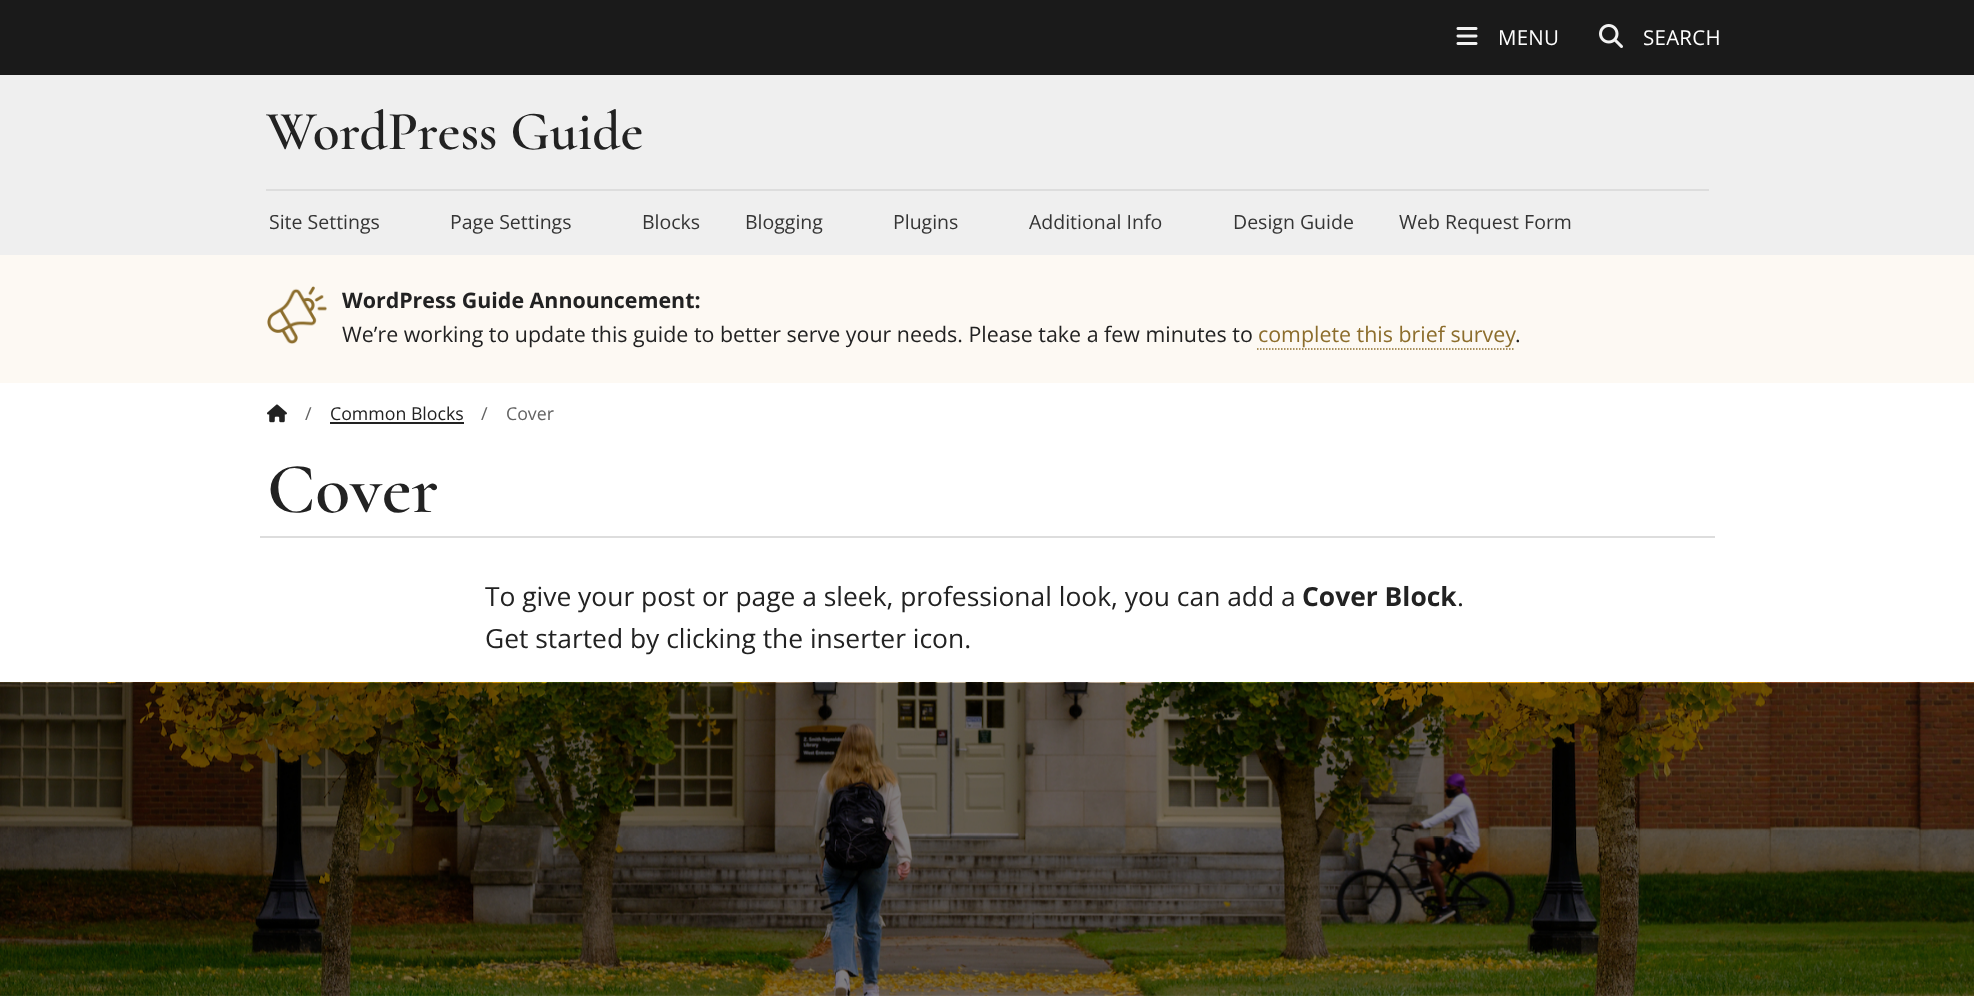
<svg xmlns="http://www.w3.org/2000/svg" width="1974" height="996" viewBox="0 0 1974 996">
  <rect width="100%" height="100%" fill="rgb(255,255,255)"/>
  <rect x="0" y="0" width="1974" height="75" fill="rgb(26,26,26)"/>
  <image x="1456" y="27" width="22" height="18" href="pic1.png"/>
  <text x="1498" y="45" font-family="Open Sans" font-size="20.5" letter-spacing="0.25" fill="rgb(255,255,255)">MENU</text>
  <image x="1599" y="24" width="24" height="24" href="pic2.png"/>
  <text x="1643" y="45" font-family="Open Sans" font-size="20.5" letter-spacing="0.25" fill="rgb(255,255,255)">SEARCH</text>
  <rect x="0" y="75" width="1974" height="180" fill="rgb(239,239,239)"/>
  <rect x="266" y="189" width="1443" height="2" fill="rgb(221,221,221)"/>
  <text x="266" y="149" font-family="Cormorant" font-size="55.25" font-weight="600" fill="rgb(34,34,34)">WordPress Guide</text>
  <g font-family="Open Sans" font-size="19.5" fill="rgb(53,53,53)">
    <text x="269" y="229">Site Settings</text>
    <text x="450" y="229">Page Settings</text>
    <text x="642" y="229">Blocks</text>
    <text x="745" y="229">Blogging</text>
    <text x="893" y="229">Plugins</text>
    <text x="1029" y="229">Additional Info</text>
    <text x="1233" y="229">Design Guide</text>
    <text x="1399" y="229">Web Request Form</text>
  </g>
  <rect x="0" y="255" width="1974" height="128" fill="rgb(253,249,243)"/>
  <image x="267" y="286" width="60" height="58" href="pic3.png"/>
  <text x="342" y="308" font-family="Open Sans" font-size="21.4" font-weight="bold" fill="rgb(34,34,34)">WordPress Guide Announcement:</text>
  <text x="342" y="342" font-family="Open Sans" font-size="21.4" fill="rgb(34,34,34)">We’re working to update this guide to better serve your needs. Please take a few minutes to</text>
  <text x="1258" y="342" font-family="Open Sans" font-size="21.4" fill="rgb(140,109,44)">complete this brief survey</text>
  <path d="M1257 349H1515" fill="none" stroke="rgb(140,109,44)" stroke-width="1.5" stroke-dasharray="1.5 1.5"/>
  <text x="1515" y="342" font-family="Open Sans" font-size="21.4" fill="rgb(34,34,34)">.</text>
  <image x="267" y="404" width="20" height="19" href="pic4.png"/>
  <text x="305" y="420" font-family="Open Sans" font-size="18" fill="rgb(98,98,98)">/</text>
  <text x="330" y="420" font-family="Open Sans" font-size="17.75" fill="rgb(34,34,34)">Common Blocks</text>
  <rect x="330" y="422" width="134" height="2" fill="rgb(34,34,34)"/>
  <text x="481" y="420" font-family="Open Sans" font-size="18" fill="rgb(98,98,98)">/</text>
  <text x="506" y="420" font-family="Open Sans" font-size="17.75" fill="rgb(98,98,98)">Cover</text>
  <rect x="260" y="536" width="1455" height="2" fill="rgb(221,221,221)"/>
  <text x="267" y="512" font-family="Cormorant" font-size="72" font-weight="600" fill="rgb(34,34,34)">Cover</text>
  <text x="485" y="606" font-family="Open Sans" font-size="26.4" fill="rgb(34,34,34)">To give your post or page a sleek, professional look, you can add a</text>
  <text x="1302" y="606" font-family="Open Sans" font-size="26.4" font-weight="bold" fill="rgb(34,34,34)">Cover Block</text>
  <g font-family="Open Sans" font-size="26.4" fill="rgb(34,34,34)">
    <text x="1457" y="606">.</text>
    <text x="485" y="648">Get started by clicking the inserter icon.</text>
  </g>
  <image x="0" y="682" width="1974" height="314" href="pic5.png"/>
</svg>
